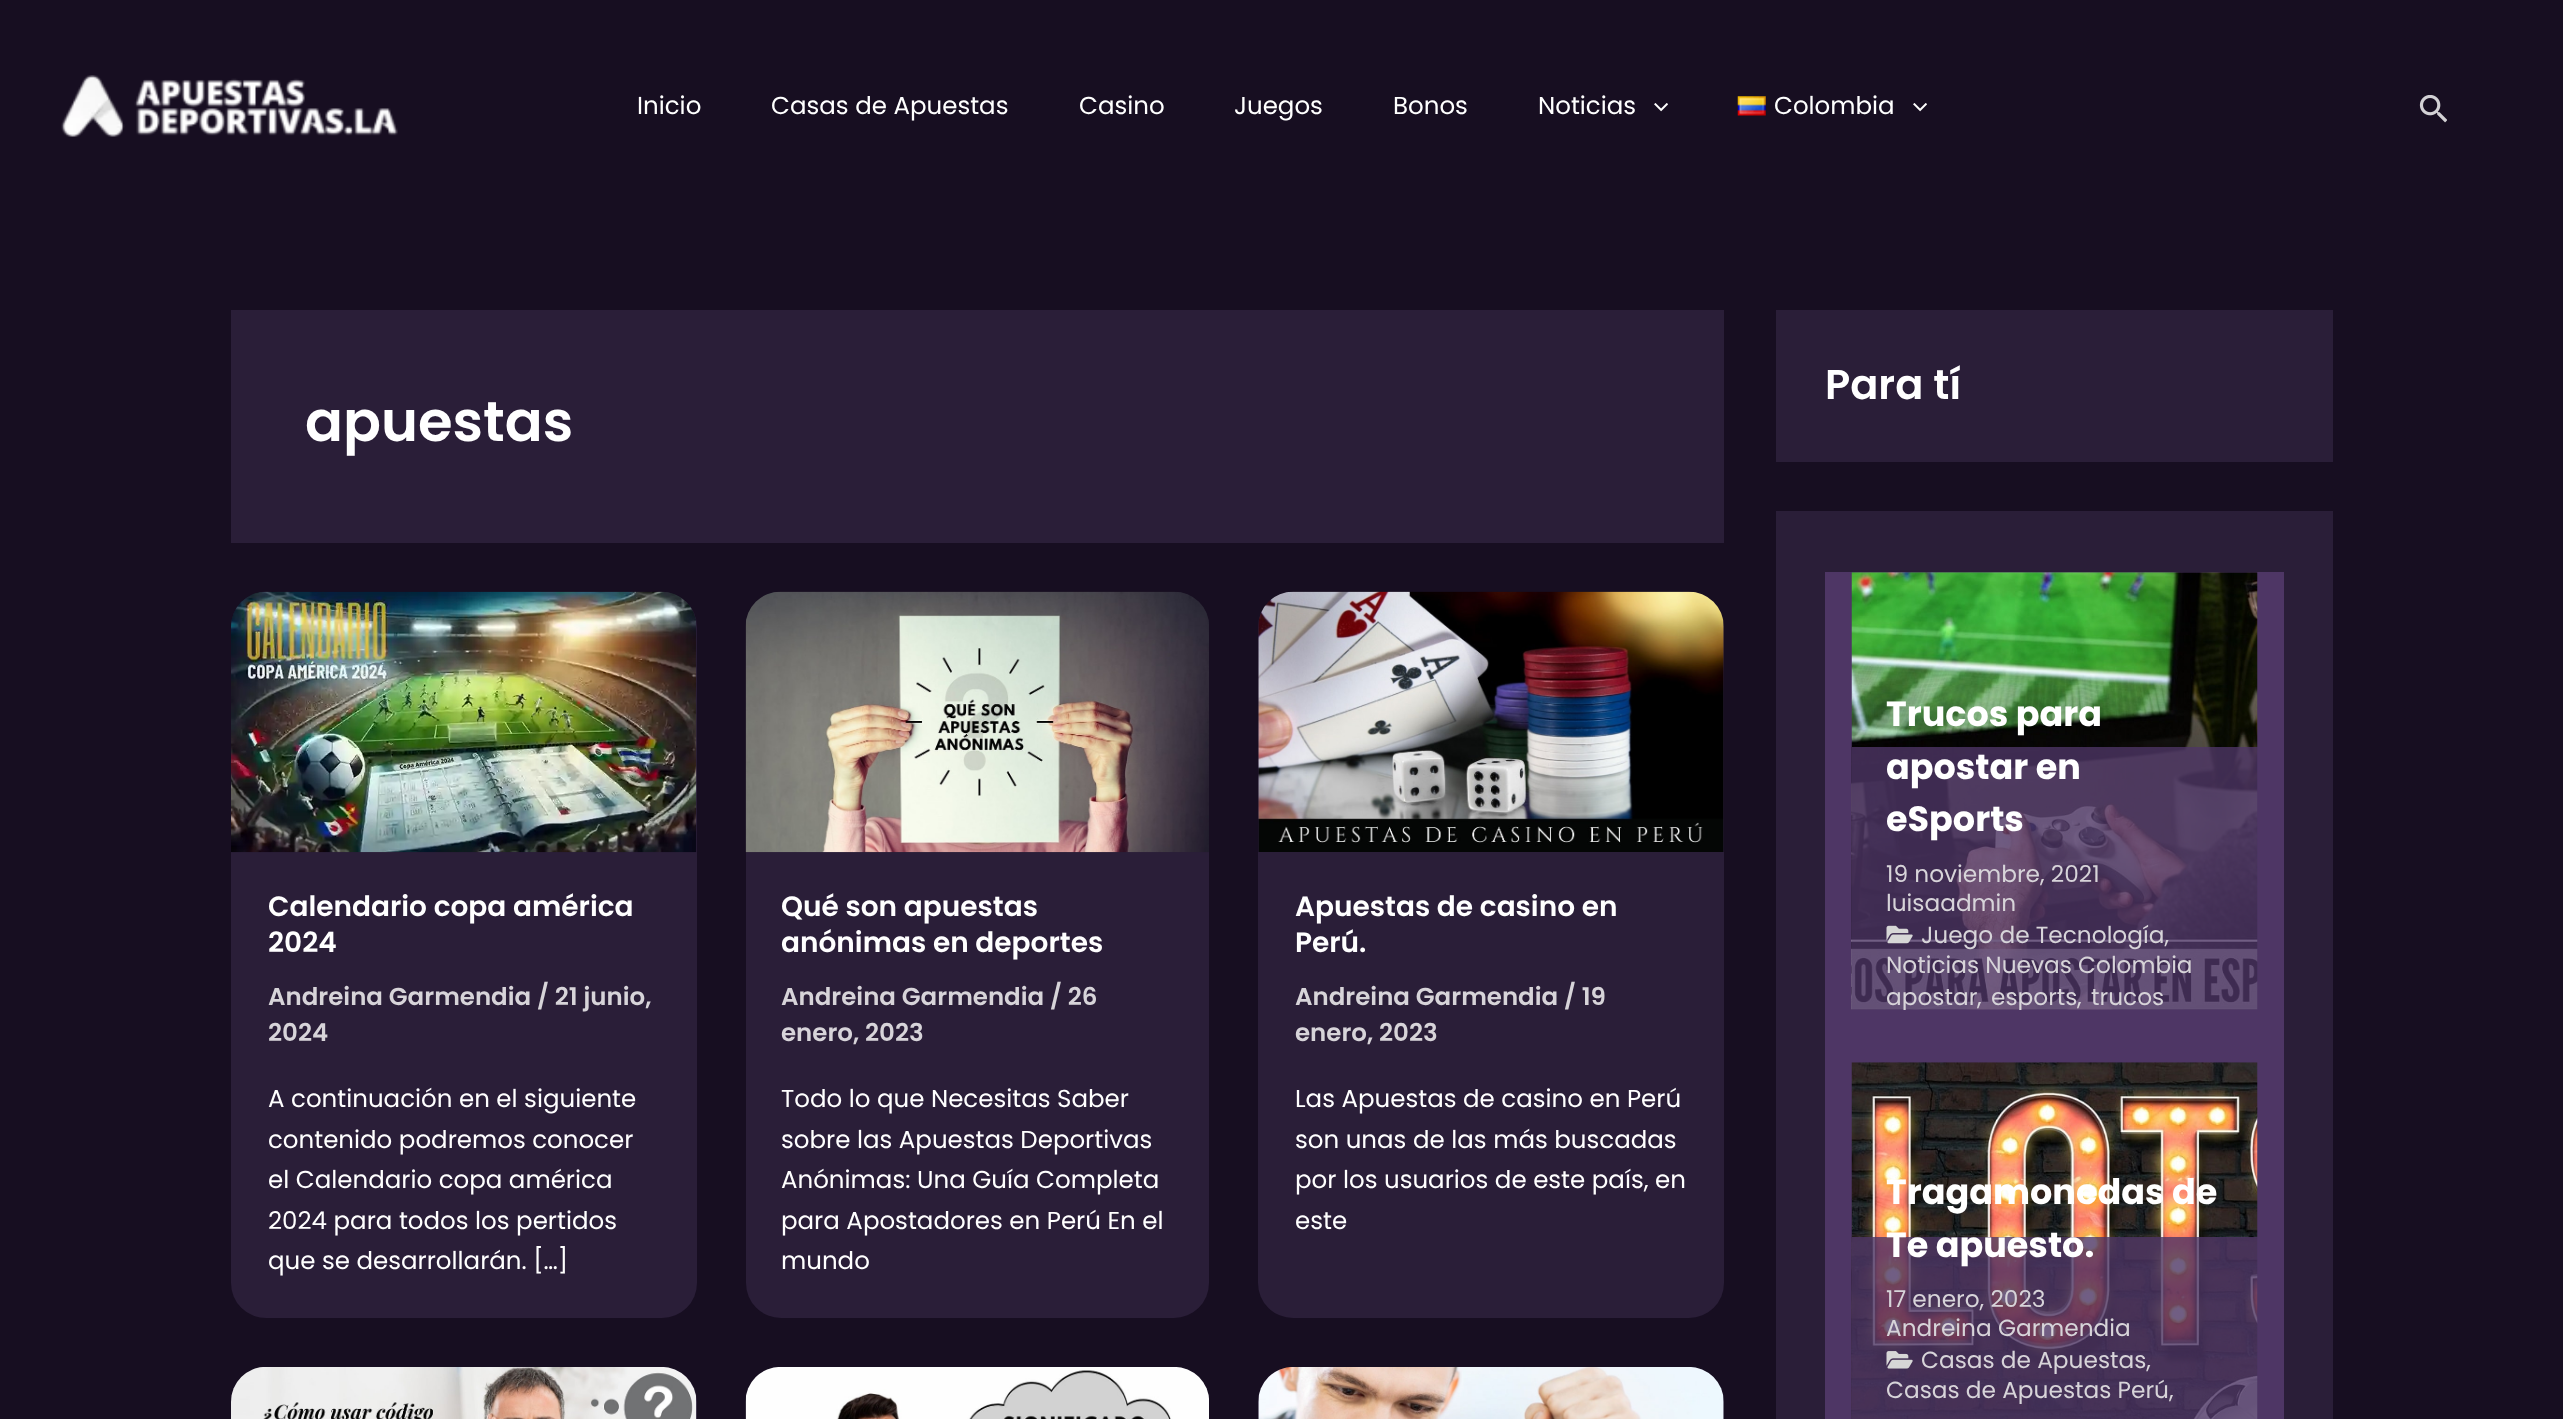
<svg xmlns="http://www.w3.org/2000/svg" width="2563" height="1419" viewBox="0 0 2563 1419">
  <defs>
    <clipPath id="clip1"><rect x="1852" y="572" width="406" height="438"/></clipPath>
  </defs>
  <rect width="100%" height="100%" fill="rgb(23,14,33)"/>
  <image x="61" y="75" width="337" height="62" href="pic1.png"/>
  <g font-family="Poppins" font-size="24.5" fill="rgb(255,255,255)">
    <text x="637" y="114">Inicio</text>
    <text x="771" y="114">Casas de Apuestas</text>
    <text x="1079" y="114">Casino</text>
    <text x="1234" y="114">Juegos</text>
    <text x="1393" y="114">Bonos</text>
    <text x="1538" y="114">Noticias</text>
  </g>
  <image x="1654" y="103" width="14" height="9" href="pic2.png"/>
  <image x="1737" y="96" width="29" height="20" href="pic3.png"/>
  <text x="1774" y="114" font-family="Poppins" font-size="24.5" fill="rgb(255,255,255)">Colombia</text>
  <image x="1913" y="103" width="14" height="9" href="pic2.png"/>
  <image x="2419" y="95" width="28" height="28" href="pic4.png"/>
  <rect x="231" y="310" width="1493" height="233" fill="rgb(42,30,56)"/>
  <text x="305" y="441" font-family="Poppins" font-size="56" font-weight="600" fill="rgb(255,255,255)">apuestas</text>
  <rect x="231" y="592" width="466" height="726" rx="35" fill="rgb(42,30,56)"/>
  <image x="231" y="591" width="466" height="262" href="pic5.png"/>
  <g font-family="Poppins" font-size="28" font-weight="600" fill="rgb(255,255,255)">
    <text>
      <tspan x="268" y="916">Calendario copa américa</tspan>
      <tspan x="268" y="952">2024</tspan>
    </text>
  </g>
  <g font-family="Poppins" font-size="24.5" font-weight="600" fill="rgb(215,212,217)">
    <text>
      <tspan x="268" y="1005">Andreina Garmendia / 21 junio,</tspan>
      <tspan x="268" y="1041">2024</tspan>
    </text>
  </g>
  <g font-family="Poppins" font-size="24.5" fill="rgb(255,255,255)">
    <text>
      <tspan x="268" y="1107">A continuación en el siguiente</tspan>
      <tspan x="268" y="1148">contenido podremos conocer</tspan>
      <tspan x="268" y="1188">el Calendario copa américa</tspan>
      <tspan x="268" y="1229">2024 para todos los pertidos</tspan>
      <tspan x="268" y="1269">que se desarrollarán. […]</tspan>
    </text>
  </g>
  <rect x="746" y="592" width="463" height="726" rx="35" fill="rgb(42,30,56)"/>
  <image x="745" y="591" width="464" height="262" href="pic6.png"/>
  <g font-family="Poppins" font-size="28" font-weight="600" fill="rgb(255,255,255)">
    <text>
      <tspan x="781" y="916">Qué son apuestas</tspan>
      <tspan x="781" y="952">anónimas en deportes</tspan>
    </text>
  </g>
  <g font-family="Poppins" font-size="24.5" font-weight="600" fill="rgb(215,212,217)">
    <text>
      <tspan x="781" y="1005">Andreina Garmendia / 26</tspan>
      <tspan x="781" y="1041">enero, 2023</tspan>
    </text>
  </g>
  <g font-family="Poppins" font-size="24.5" fill="rgb(255,255,255)">
    <text>
      <tspan x="781" y="1107">Todo lo que Necesitas Saber</tspan>
      <tspan x="781" y="1148">sobre las Apuestas Deportivas</tspan>
      <tspan x="781" y="1188">Anónimas: Una Guía Completa</tspan>
      <tspan x="781" y="1229">para Apostadores en Perú En el</tspan>
      <tspan x="781" y="1269">mundo</tspan>
    </text>
  </g>
  <rect x="1258" y="592" width="466" height="726" rx="35" fill="rgb(42,30,56)"/>
  <image x="1258" y="591" width="466" height="261" href="pic7.png"/>
  <g font-family="Poppins" font-size="28" font-weight="600" fill="rgb(255,255,255)">
    <text>
      <tspan x="1295" y="916">Apuestas de casino en</tspan>
      <tspan x="1295" y="952">Perú.</tspan>
    </text>
  </g>
  <g font-family="Poppins" font-size="24.5" font-weight="600" fill="rgb(215,212,217)">
    <text>
      <tspan x="1295" y="1005">Andreina Garmendia / 19</tspan>
      <tspan x="1295" y="1041">enero, 2023</tspan>
    </text>
  </g>
  <g font-family="Poppins" font-size="24.5" fill="rgb(255,255,255)">
    <text>
      <tspan x="1295" y="1107">Las Apuestas de casino en Perú</tspan>
      <tspan x="1295" y="1148">son unas de las más buscadas</tspan>
      <tspan x="1295" y="1188">por los usuarios de este país, en</tspan>
      <tspan x="1295" y="1229">este</tspan>
    </text>
  </g>
  <rect x="231" y="1367" width="466" height="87" rx="35" fill="rgb(42,30,56)"/>
  <image x="231" y="1367" width="466" height="52" href="pic8.png"/>
  <image x="745" y="1367" width="464" height="52" href="pic9.png"/>
  <rect x="1258" y="1367" width="466" height="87" rx="35" fill="rgb(42,30,56)"/>
  <image x="1258" y="1367" width="466" height="52" href="pic10.png"/>
  <rect x="1776" y="310" width="557" height="152" fill="rgb(42,30,56)"/>
  <text x="1825" y="399" font-family="Poppins" font-size="41.5" font-weight="600" fill="rgb(255,255,255)">Para tí</text>
  <rect x="1776" y="511" width="557" height="908" fill="rgb(42,30,56)"/>
  <rect x="1825" y="572" width="459" height="847" fill="rgb(78,54,101)"/>
  <image x="1851" y="572" width="407" height="438" href="pic11.png"/>
  <rect x="1852" y="747" width="406" height="263" fill="rgba(78,54,101,0.8)"/>
  <g font-family="Poppins" font-size="35" font-weight="bold" fill="rgb(255,255,255)">
    <text>
      <tspan x="1886" y="726">Trucos para</tspan>
      <tspan x="1886" y="779">apostar en</tspan>
      <tspan x="1886" y="831">eSports</tspan>
    </text>
  </g>
  <g font-family="Poppins" font-size="23.25" fill="rgb(215,212,217)">
    <text>
      <tspan x="1886" y="882">19 noviembre, 2021</tspan>
      <tspan x="1886" y="911">luisaadmin</tspan>
    </text>
  </g>
  <image x="1886" y="925" width="27" height="19" href="pic12.png"/>
  <g font-family="Poppins" font-size="23.25" fill="rgb(215,212,217)">
    <text x="1921" y="943">Juego de Tecnología,</text>
    <text x="1886" y="973">Noticias Nuevas Colombia</text>
  </g>
  <g clip-path="url(#clip1)">
    <text x="1886" y="1005" font-family="Poppins" font-size="23.25" fill="rgb(215,212,217)">apostar</text>
  </g>
  <text x="1977" y="1005" font-family="Poppins" font-size="23.25" fill="rgb(215,212,217)">,</text>
  <g clip-path="url(#clip1)">
    <text x="1991" y="1005" font-family="Poppins" font-size="23.25" fill="rgb(215,212,217)">esports</text>
  </g>
  <g font-family="Poppins" font-size="23.25" fill="rgb(215,212,217)">
    <text x="2077" y="1005">,</text>
    <text x="2091" y="1005">trucos</text>
  </g>
  <image x="1851" y="1062" width="407" height="357" href="pic13.png"/>
  <rect x="1852" y="1237" width="406" height="182" fill="rgba(78,54,101,0.8)"/>
  <g font-family="Poppins" font-size="35" font-weight="bold" fill="rgb(255,255,255)">
    <text>
      <tspan x="1886" y="1204">Tragamonedas de</tspan>
      <tspan x="1886" y="1257">Te apuesto.</tspan>
    </text>
  </g>
  <g font-family="Poppins" font-size="23.25" fill="rgb(215,212,217)">
    <text>
      <tspan x="1886" y="1307">17 enero, 2023</tspan>
      <tspan x="1886" y="1336">Andreina Garmendia</tspan>
    </text>
  </g>
  <image x="1886" y="1351" width="27" height="18" href="pic14.png"/>
  <g font-family="Poppins" font-size="23.25" fill="rgb(215,212,217)">
    <text x="1921" y="1368">Casas de Apuestas,</text>
    <text x="1886" y="1398">Casas de Apuestas Perú,</text>
  </g>
</svg>
